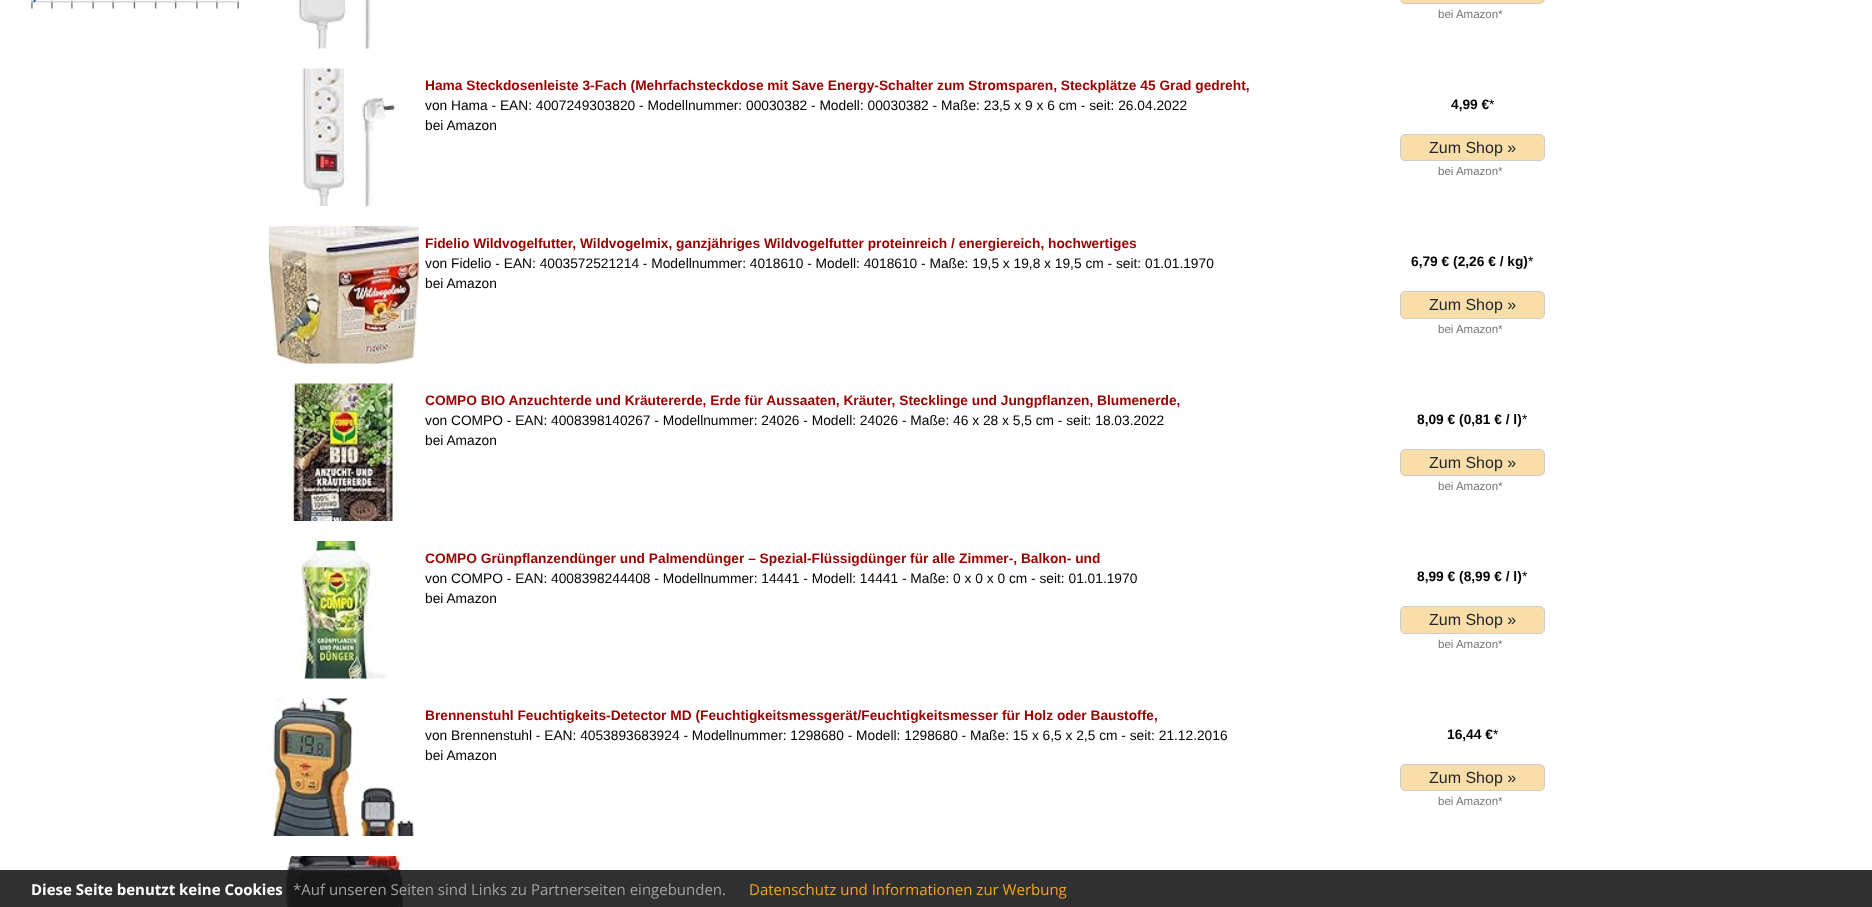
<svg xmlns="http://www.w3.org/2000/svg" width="1872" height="907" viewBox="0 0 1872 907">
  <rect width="100%" height="100%" fill="rgb(255,255,255)"/>
  <image x="30" y="0" width="210" height="9" href="pic1.png"/>
  <image x="298" y="0" width="73" height="49" href="pic2.png"/>
  <rect x="1400.5" y="-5.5" width="144" height="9" rx="4.5" fill="rgb(250,222,169)" stroke="rgb(204,204,204)"/>
  <text x="1438" y="18" font-family="Liberation Sans" font-size="11.5" fill="rgb(119,119,119)">bei Amazon*</text>
  <image x="302" y="68" width="100" height="138" href="pic3.png"/>
  <text x="425" y="90" font-family="Liberation Sans" font-size="13.75" font-weight="bold" fill="rgb(153,0,0)">Hama Steckdosenleiste 3-Fach (Mehrfachsteckdose mit Save Energy-Schalter zum Stromsparen, Steckplätze 45 Grad gedreht,</text>
  <g font-family="Liberation Sans" font-size="13.75" fill="rgb(0,0,0)">
    <text>
      <tspan x="425" y="110">von Hama - EAN: 4007249303820 - Modellnummer: 00030382 - Modell: 00030382 - Maße: 23,5 x 9 x 6 cm - seit: 26.04.2022</tspan>
      <tspan x="425" y="130">bei Amazon</tspan>
    </text>
  </g>
  <text x="1451" y="109" font-family="Liberation Sans" font-size="13.75" font-weight="bold" fill="rgb(0,0,0)">4,99 €</text>
  <text x="1489" y="109" font-family="Liberation Sans" font-size="13.75" fill="rgb(0,0,0)">*</text>
  <rect x="1400.5" y="134.5" width="144" height="26" rx="4.5" fill="rgb(250,222,169)" stroke="rgb(204,204,204)"/>
  <text x="1429" y="153" font-family="Liberation Sans" font-size="16" fill="rgb(33,37,41)">Zum Shop »</text>
  <text x="1438" y="175" font-family="Liberation Sans" font-size="11.5" fill="rgb(119,119,119)">bei Amazon*</text>
  <image x="268" y="226" width="151" height="138" href="pic4.png"/>
  <text x="425" y="248" font-family="Liberation Sans" font-size="13.75" font-weight="bold" fill="rgb(153,0,0)">Fidelio Wildvogelfutter, Wildvogelmix, ganzjähriges Wildvogelfutter proteinreich / energiereich, hochwertiges</text>
  <g font-family="Liberation Sans" font-size="13.75" fill="rgb(0,0,0)">
    <text>
      <tspan x="425" y="268">von Fidelio - EAN: 4003572521214 - Modellnummer: 4018610 - Modell: 4018610 - Maße: 19,5 x 19,8 x 19,5 cm - seit: 01.01.1970</tspan>
      <tspan x="425" y="288">bei Amazon</tspan>
    </text>
  </g>
  <text x="1411" y="266" font-family="Liberation Sans" font-size="13.75" font-weight="bold" fill="rgb(0,0,0)">6,79 € (2,26 € / kg)</text>
  <text x="1528" y="266" font-family="Liberation Sans" font-size="13.75" fill="rgb(0,0,0)">*</text>
  <rect x="1400.5" y="291.5" width="144" height="27" rx="4.5" fill="rgb(250,222,169)" stroke="rgb(204,204,204)"/>
  <text x="1429" y="310" font-family="Liberation Sans" font-size="16" fill="rgb(33,37,41)">Zum Shop »</text>
  <text x="1438" y="333" font-family="Liberation Sans" font-size="11.5" fill="rgb(119,119,119)">bei Amazon*</text>
  <image x="284" y="383" width="120" height="138" href="pic5.png"/>
  <text x="425" y="405" font-family="Liberation Sans" font-size="13.75" font-weight="bold" fill="rgb(153,0,0)">COMPO BIO Anzuchterde und Kräutererde, Erde für Aussaaten, Kräuter, Stecklinge und Jungpflanzen, Blumenerde,</text>
  <g font-family="Liberation Sans" font-size="13.75" fill="rgb(0,0,0)">
    <text>
      <tspan x="425" y="425">von COMPO - EAN: 4008398140267 - Modellnummer: 24026 - Modell: 24026 - Maße: 46 x 28 x 5,5 cm - seit: 18.03.2022</tspan>
      <tspan x="425" y="445">bei Amazon</tspan>
    </text>
  </g>
  <text x="1417" y="424" font-family="Liberation Sans" font-size="13.75" font-weight="bold" fill="rgb(0,0,0)">8,09 € (0,81 € / l)</text>
  <text x="1522" y="424" font-family="Liberation Sans" font-size="13.75" fill="rgb(0,0,0)">*</text>
  <rect x="1400.5" y="449.5" width="144" height="26" rx="4.5" fill="rgb(250,222,169)" stroke="rgb(204,204,204)"/>
  <text x="1429" y="468" font-family="Liberation Sans" font-size="16" fill="rgb(33,37,41)">Zum Shop »</text>
  <text x="1438" y="490" font-family="Liberation Sans" font-size="11.5" fill="rgb(119,119,119)">bei Amazon*</text>
  <image x="301" y="541" width="86" height="138" href="pic6.png"/>
  <text x="425" y="563" font-family="Liberation Sans" font-size="13.75" font-weight="bold" fill="rgb(153,0,0)">COMPO Grünpflanzendünger und Palmendünger – Spezial-Flüssigdünger für alle Zimmer-, Balkon- und</text>
  <g font-family="Liberation Sans" font-size="13.75" fill="rgb(0,0,0)">
    <text>
      <tspan x="425" y="583">von COMPO - EAN: 4008398244408 - Modellnummer: 14441 - Modell: 14441 - Maße: 0 x 0 x 0 cm - seit: 01.01.1970</tspan>
      <tspan x="425" y="603">bei Amazon</tspan>
    </text>
  </g>
  <text x="1417" y="581" font-family="Liberation Sans" font-size="13.75" font-weight="bold" fill="rgb(0,0,0)">8,99 € (8,99 € / l)</text>
  <text x="1522" y="581" font-family="Liberation Sans" font-size="13.75" fill="rgb(0,0,0)">*</text>
  <rect x="1400.5" y="606.5" width="144" height="27" rx="4.5" fill="rgb(250,222,169)" stroke="rgb(204,204,204)"/>
  <text x="1429" y="625" font-family="Liberation Sans" font-size="16" fill="rgb(33,37,41)">Zum Shop »</text>
  <text x="1438" y="648" font-family="Liberation Sans" font-size="11.5" fill="rgb(119,119,119)">bei Amazon*</text>
  <image x="269" y="698" width="145" height="138" href="pic7.png"/>
  <text x="425" y="720" font-family="Liberation Sans" font-size="13.75" font-weight="bold" fill="rgb(153,0,0)">Brennenstuhl Feuchtigkeits-Detector MD (Feuchtigkeitsmessgerät/Feuchtigkeitsmesser für Holz oder Baustoffe,</text>
  <g font-family="Liberation Sans" font-size="13.75" fill="rgb(0,0,0)">
    <text>
      <tspan x="425" y="740">von Brennenstuhl - EAN: 4053893683924 - Modellnummer: 1298680 - Modell: 1298680 - Maße: 15 x 6,5 x 2,5 cm - seit: 21.12.2016</tspan>
      <tspan x="425" y="760">bei Amazon</tspan>
    </text>
  </g>
  <text x="1447" y="739" font-family="Liberation Sans" font-size="13.75" font-weight="bold" fill="rgb(0,0,0)">16,44 €</text>
  <text x="1493" y="739" font-family="Liberation Sans" font-size="13.75" fill="rgb(0,0,0)">*</text>
  <rect x="1400.5" y="764.5" width="144" height="26" rx="4.5" fill="rgb(250,222,169)" stroke="rgb(204,204,204)"/>
  <text x="1429" y="783" font-family="Liberation Sans" font-size="16" fill="rgb(33,37,41)">Zum Shop »</text>
  <text x="1438" y="805" font-family="Liberation Sans" font-size="11.5" fill="rgb(119,119,119)">bei Amazon*</text>
  <image x="285" y="856" width="125" height="51" href="pic8.png"/>
  <rect x="0" y="870" width="1872" height="37" fill="rgba(25,25,25,0.9)"/>
  <text x="31" y="895" font-family="Open Sans" font-size="15" font-weight="bold" fill="rgb(255,255,255)">Diese Seite benutzt keine Cookies</text>
  <text x="293" y="895" font-family="Open Sans" font-size="15" fill="rgb(162,162,162)">*Auf unseren Seiten sind Links zu Partnerseiten eingebunden.</text>
  <text x="749" y="895" font-family="Open Sans" font-size="15" fill="rgb(246,162,29)">Datenschutz und Informationen zur Werbung</text>
</svg>
